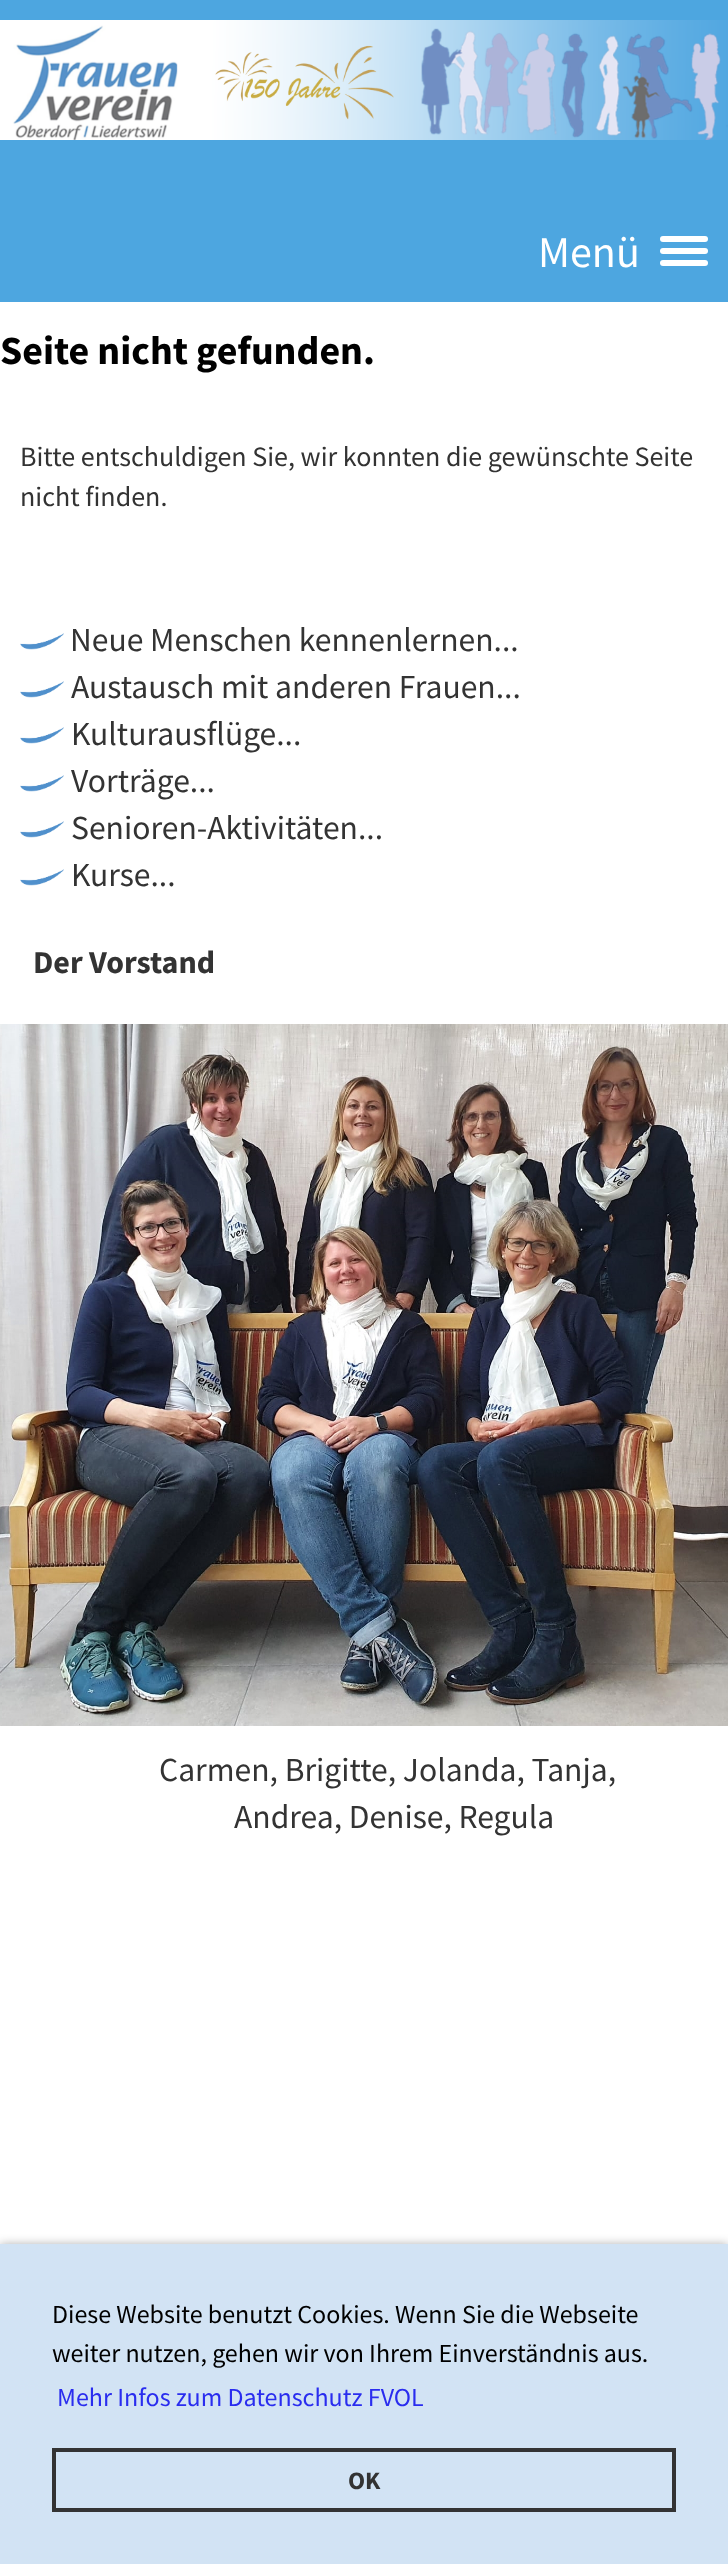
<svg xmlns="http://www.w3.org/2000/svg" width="728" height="2564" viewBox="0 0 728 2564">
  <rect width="100%" height="100%" fill="rgb(255,255,255)"/>
  <rect x="0" y="0" width="728" height="302" fill="rgb(77,166,224)"/>
  <image x="0" y="20" width="728" height="120" href="pic1.png"/>
  <text x="538" y="267" font-family="Source Sans Pro" font-size="44" fill="rgb(255,255,255)">Menü</text>
  <rect x="660" y="236" width="48" height="6" rx="3" fill="rgb(255,255,255)"/>
  <rect x="660" y="248" width="48" height="6" rx="3" fill="rgb(255,255,255)"/>
  <rect x="660" y="260" width="48" height="6" rx="3" fill="rgb(255,255,255)"/>
  <text x="0" y="364" font-family="Source Sans Pro" font-size="40" font-weight="bold" fill="rgb(0,0,0)">Seite nicht gefunden.</text>
  <g font-family="Source Sans Pro" font-size="28" fill="rgb(51,51,51)">
    <text>
      <tspan x="20" y="466">Bitte entschuldigen Sie, wir konnten die gewünschte Seite</tspan>
      <tspan x="20" y="506">nicht finden.</tspan>
    </text>
  </g>
  <image x="20" y="633" width="44" height="17" href="pic2.png"/>
  <text x="70" y="651" font-family="Source Sans Pro" font-size="33.6" fill="rgb(51,51,51)">Neue Menschen kennenlernen...</text>
  <image x="20" y="681" width="44" height="17" href="pic2.png"/>
  <text x="71" y="698" font-family="Source Sans Pro" font-size="33.6" fill="rgb(51,51,51)">Austausch mit anderen Frauen...</text>
  <image x="20" y="727" width="44" height="17" href="pic2.png"/>
  <text x="71" y="745" font-family="Source Sans Pro" font-size="33.6" fill="rgb(51,51,51)">Kulturausflüge...</text>
  <image x="20" y="775" width="44" height="17" href="pic2.png"/>
  <text x="71" y="792" font-family="Source Sans Pro" font-size="33.6" fill="rgb(51,51,51)">Vorträge...</text>
  <image x="20" y="821" width="44" height="17" href="pic2.png"/>
  <text x="71" y="839" font-family="Source Sans Pro" font-size="33.6" fill="rgb(51,51,51)">Senioren-Aktivitäten...</text>
  <image x="20" y="869" width="44" height="17" href="pic2.png"/>
  <text x="71" y="886" font-family="Source Sans Pro" font-size="33.6" fill="rgb(51,51,51)">Kurse...</text>
  <text x="33" y="973" font-family="Source Sans Pro" font-size="32" font-weight="bold" fill="rgb(51,51,51)">Der Vorstand</text>
  <image x="0" y="1024" width="728" height="702" href="pic3.png"/>
  <g font-family="Source Sans Pro" font-size="33.6" fill="rgb(51,51,51)">
    <text x="159" y="1781">Carmen, Brigitte, Jolanda, Tanja,</text>
    <text x="234" y="1828">Andrea, Denise, Regula</text>
  </g>
  <rect x="0" y="2244" width="728" height="320" fill="rgba(0,0,0,0.3)" filter="blur(5px)"/>
  <rect x="0" y="2244" width="728" height="320" fill="rgb(210,227,244)"/>
  <g font-family="Source Sans Pro" font-size="26" fill="rgb(0,0,0)">
    <text>
      <tspan x="52" y="2323">Diese Website benutzt Cookies. Wenn Sie die Webseite</tspan>
      <tspan x="52" y="2362">weiter nutzen, gehen wir von Ihrem Einverständnis aus.</tspan>
    </text>
  </g>
  <text x="57" y="2406" font-family="Source Sans Pro" font-size="26" fill="rgb(42,45,239)">Mehr Infos zum Datenschutz FVOL</text>
  <rect x="54" y="2450" width="620" height="60" fill="none" stroke="rgb(51,51,51)" stroke-width="4"/>
  <text x="348" y="2489" font-family="Source Sans Pro" font-size="25" font-weight="bold" fill="rgb(51,51,51)">OK</text>
</svg>
